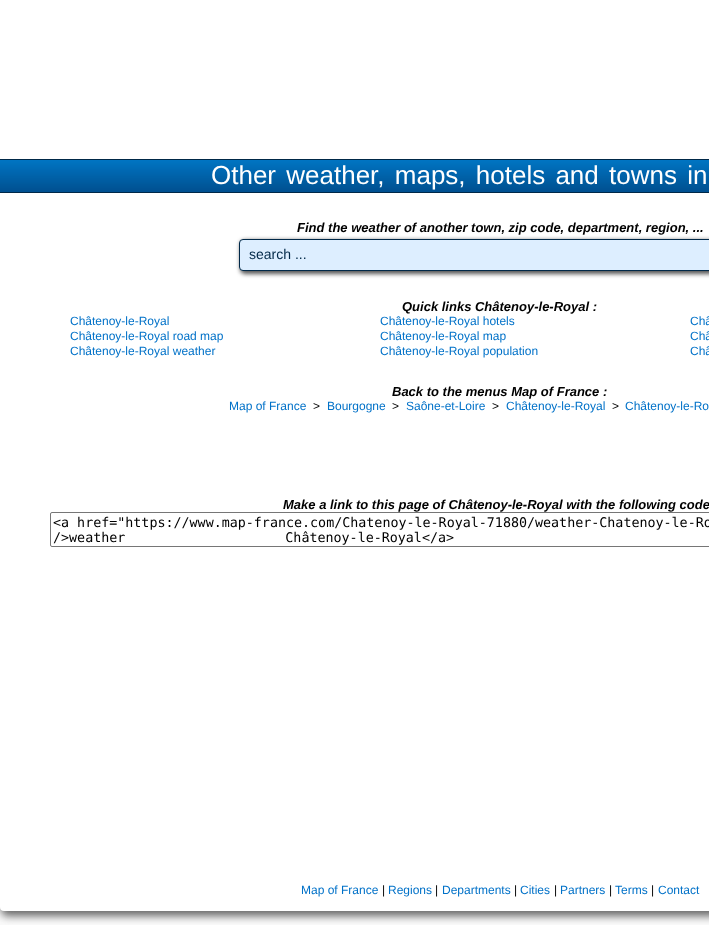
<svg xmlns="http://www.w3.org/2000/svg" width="709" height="925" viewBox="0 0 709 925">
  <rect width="100%" height="100%" fill="rgb(250,250,250)"/>
  <rect x="1" y="-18" width="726" height="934" rx="6" fill="rgb(102,102,102)" filter="blur(4px)"/>
  <rect x="0" y="-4" width="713" height="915" rx="4" fill="rgb(255,255,255)"/>
  <image x="0" y="160" width="709" height="32" href="pic1.png"/>
  <rect x="0" y="159" width="709" height="1" fill="rgb(0,40,72)"/>
  <rect x="0" y="192" width="709" height="1" fill="rgb(0,40,72)"/>
  <text x="211" y="184" word-spacing="3" font-family="Liberation Sans" font-size="26" fill="rgb(255,255,255)">Other weather, maps, hotels and towns in</text>
  <rect x="240" y="240" width="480" height="34" rx="5" fill="rgb(85,85,85)" filter="blur(2px)"/>
  <text x="297" y="232" font-family="Liberation Sans" font-size="13" font-weight="bold" font-style="italic" fill="rgb(0,0,0)">Find the weather of another town, zip code, department, region, ...</text>
  <rect x="239.5" y="239.5" width="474" height="31" rx="3.5" fill="rgb(221,238,255)" stroke="rgb(0,40,72)"/>
  <text x="249" y="259" font-family="Liberation Sans" font-size="14" fill="rgb(0,40,72)">search ...</text>
  <text x="402" y="311" font-family="Liberation Sans" font-size="13" font-weight="bold" font-style="italic" fill="rgb(0,0,0)">Quick links Châtenoy-le-Royal :</text>
  <g font-family="Liberation Sans" font-size="12" fill="rgb(0,113,200)">
    <text x="70" y="325">Châtenoy-le-Royal</text>
    <text x="380" y="325">Châtenoy-le-Royal hotels</text>
    <text x="690" y="325">Châ</text>
    <text x="70" y="340">Châtenoy-le-Royal road map</text>
    <text x="380" y="340">Châtenoy-le-Royal map</text>
    <text x="690" y="340">Châ</text>
    <text x="70" y="355">Châtenoy-le-Royal weather</text>
    <text x="380" y="355">Châtenoy-le-Royal population</text>
    <text x="690" y="355">Châ</text>
  </g>
  <text x="392" y="396" font-family="Liberation Sans" font-size="13" font-weight="bold" font-style="italic" fill="rgb(0,0,0)">Back to the menus Map of France :</text>
  <text x="229" y="410" font-family="Liberation Sans" font-size="12" fill="rgb(0,113,200)">Map of France</text>
  <text x="313" y="410" font-family="Liberation Sans" font-size="12" fill="rgb(0,0,0)">&gt;</text>
  <text x="327" y="410" font-family="Liberation Sans" font-size="12" fill="rgb(0,113,200)">Bourgogne</text>
  <text x="392" y="410" font-family="Liberation Sans" font-size="12" fill="rgb(0,0,0)">&gt;</text>
  <text x="406" y="410" font-family="Liberation Sans" font-size="12" fill="rgb(0,113,200)">Saône-et-Loire</text>
  <text x="492" y="410" font-family="Liberation Sans" font-size="12" fill="rgb(0,0,0)">&gt;</text>
  <text x="506" y="410" font-family="Liberation Sans" font-size="12" fill="rgb(0,113,200)">Châtenoy-le-Royal</text>
  <text x="612" y="410" font-family="Liberation Sans" font-size="12" fill="rgb(0,0,0)">&gt;</text>
  <text x="625" y="410" font-family="Liberation Sans" font-size="12" fill="rgb(0,113,200)">Châtenoy-le-Ro</text>
  <text x="283" y="509" font-family="Liberation Sans" font-size="13" font-weight="bold" font-style="italic" fill="rgb(0,0,0)">Make a link to this page of Châtenoy-le-Royal with the following code</text>
  <rect x="50.5" y="512.5" width="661" height="34" rx="1.5" fill="none" stroke="rgb(118,118,118)"/>
  <g font-family="DejaVu Sans Mono" font-size="13.35" fill="rgb(0,0,0)">
    <text>
      <tspan x="53" y="527">&lt;a href="https://www.map-france.com/Chatenoy-le-Royal-71880/weather-Chatenoy-le-Ro</tspan>
      <tspan x="53" y="542" word-spacing="152">/&gt;weather Châtenoy-le-Royal&lt;/a&gt;</tspan>
    </text>
  </g>
  <text x="301" y="894" font-family="Liberation Sans" font-size="12" fill="rgb(0,113,200)">Map of France</text>
  <text x="382" y="894" font-family="Liberation Sans" font-size="12" fill="rgb(0,0,0)">|</text>
  <text x="388" y="894" font-family="Liberation Sans" font-size="12" fill="rgb(0,113,200)">Regions</text>
  <text x="435" y="894" font-family="Liberation Sans" font-size="12" fill="rgb(0,0,0)">|</text>
  <text x="442" y="894" font-family="Liberation Sans" font-size="12" fill="rgb(0,113,200)">Departments</text>
  <text x="514" y="894" font-family="Liberation Sans" font-size="12" fill="rgb(0,0,0)">|</text>
  <text x="520" y="894" font-family="Liberation Sans" font-size="12" fill="rgb(0,113,200)">Cities</text>
  <text x="554" y="894" font-family="Liberation Sans" font-size="12" fill="rgb(0,0,0)">|</text>
  <text x="560" y="894" font-family="Liberation Sans" font-size="12" fill="rgb(0,113,200)">Partners</text>
  <text x="609" y="894" font-family="Liberation Sans" font-size="12" fill="rgb(0,0,0)">|</text>
  <text x="615" y="894" font-family="Liberation Sans" font-size="12" fill="rgb(0,113,200)">Terms</text>
  <text x="651" y="894" font-family="Liberation Sans" font-size="12" fill="rgb(0,0,0)">|</text>
  <text x="658" y="894" font-family="Liberation Sans" font-size="12" fill="rgb(0,113,200)">Contact</text>
</svg>
